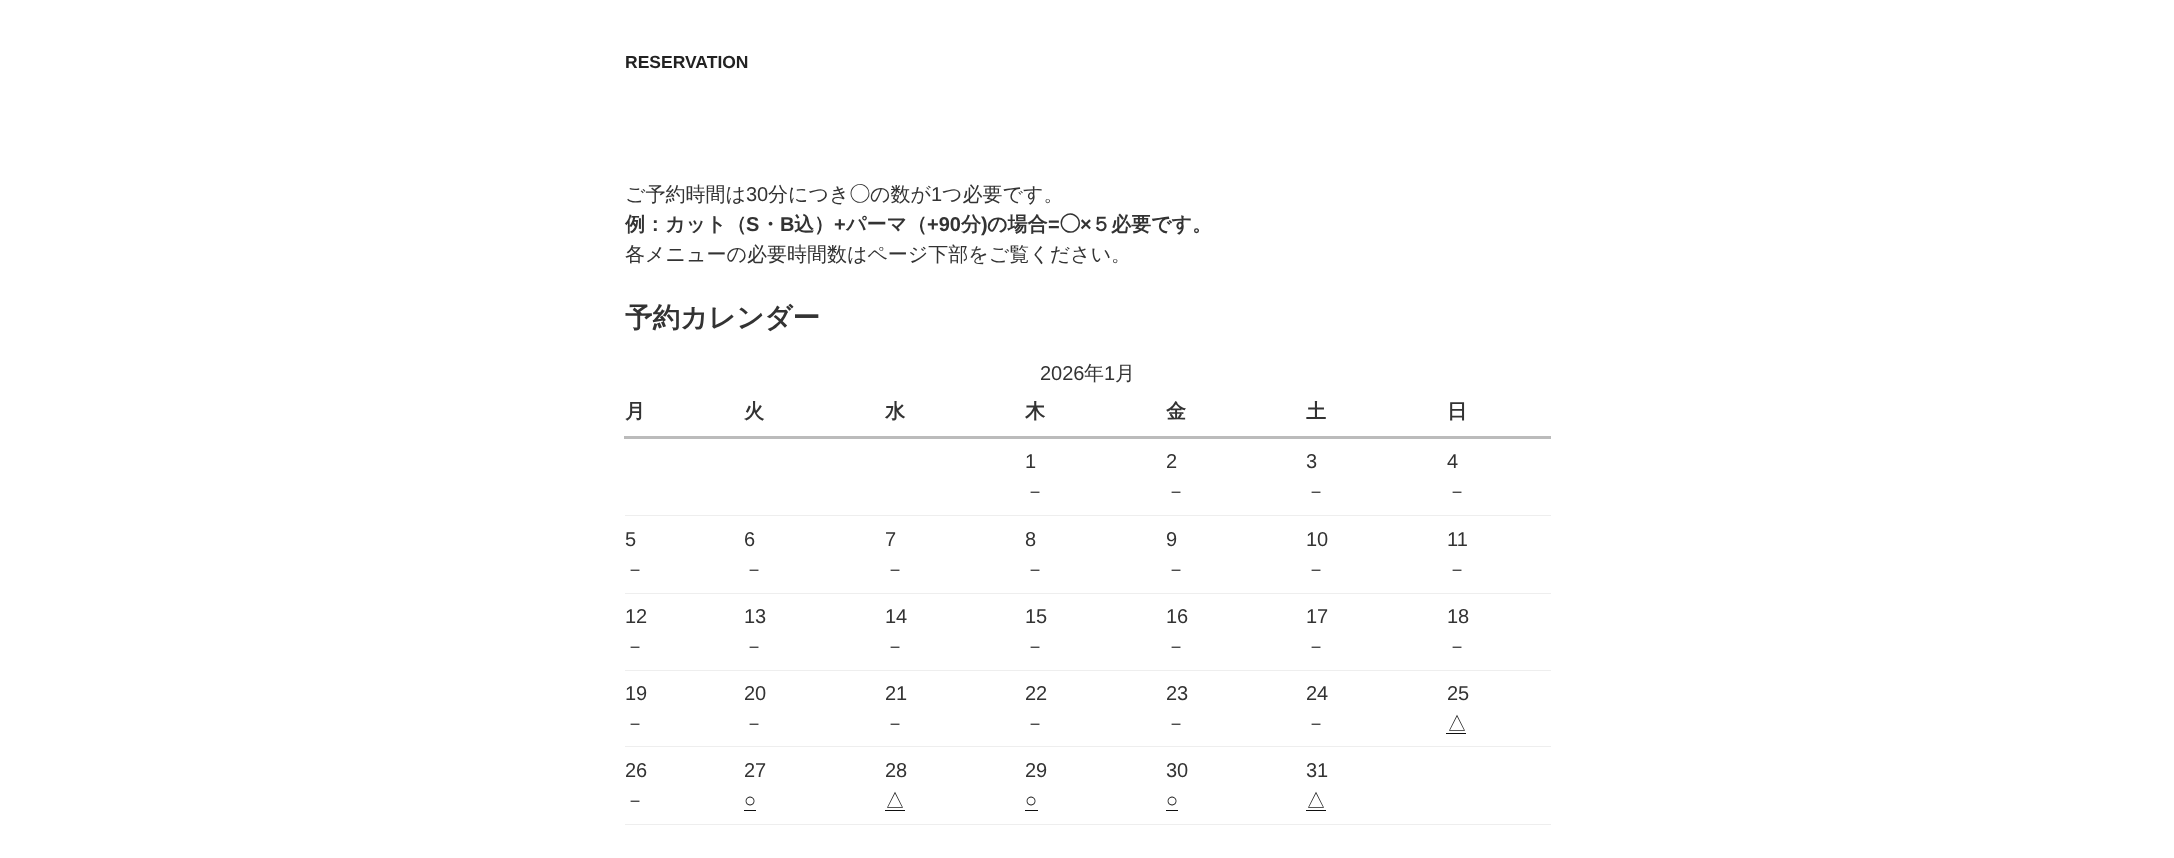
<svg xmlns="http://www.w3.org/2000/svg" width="2174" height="858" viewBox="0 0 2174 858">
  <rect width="100%" height="100%" fill="rgb(255,255,255)"/>
  <text x="625" y="68" font-family="Liberation Sans" font-size="17.5" font-weight="bold" fill="rgb(34,34,34)">RESERVATION</text>
  <text x="625" y="201" font-family="WenQuanYi Zen Hei" font-size="20" font-weight="500" fill="rgb(51,51,51)">ご予約時間は</text>
  <text x="746" y="201" font-family="Liberation Sans" font-size="20" fill="rgb(51,51,51)">30</text>
  <text x="768" y="201" font-family="WenQuanYi Zen Hei" font-size="20" font-weight="500" fill="rgb(51,51,51)">分につき</text>
  <text x="850" y="201" font-family="IPAPGothic" font-size="20" fill="rgb(51,51,51)">◯</text>
  <text x="870" y="201" font-family="WenQuanYi Zen Hei" font-size="20" font-weight="500" fill="rgb(51,51,51)">の数が</text>
  <text x="931" y="201" font-family="Liberation Sans" font-size="20" fill="rgb(51,51,51)">1</text>
  <text x="942" y="201" font-family="WenQuanYi Zen Hei" font-size="20" font-weight="500" fill="rgb(51,51,51)">つ必要です。</text>
  <text x="625" y="231" font-family="WenQuanYi Zen Hei" font-size="20" font-weight="bold" fill="rgb(51,51,51)">例：カット（</text>
  <text x="746" y="231" font-family="Liberation Sans" font-size="20" font-weight="bold" fill="rgb(51,51,51)">S</text>
  <text x="760" y="231" font-family="WenQuanYi Zen Hei" font-size="20" font-weight="bold" fill="rgb(51,51,51)">・</text>
  <text x="780" y="231" font-family="Liberation Sans" font-size="20" font-weight="bold" fill="rgb(51,51,51)">B</text>
  <text x="794" y="231" font-family="WenQuanYi Zen Hei" font-size="20" font-weight="bold" fill="rgb(51,51,51)">込）</text>
  <text x="834" y="231" font-family="Liberation Sans" font-size="20" font-weight="bold" fill="rgb(51,51,51)">+</text>
  <text x="846" y="231" font-family="WenQuanYi Zen Hei" font-size="20" font-weight="bold" fill="rgb(51,51,51)">パーマ（</text>
  <text x="927" y="231" font-family="Liberation Sans" font-size="20" font-weight="bold" fill="rgb(51,51,51)">+90</text>
  <text x="961" y="231" font-family="WenQuanYi Zen Hei" font-size="20" font-weight="bold" fill="rgb(51,51,51)">分</text>
  <text x="981" y="231" font-family="Liberation Sans" font-size="20" font-weight="bold" fill="rgb(51,51,51)">)</text>
  <text x="987" y="231" font-family="WenQuanYi Zen Hei" font-size="20" font-weight="bold" fill="rgb(51,51,51)">の場合</text>
  <text x="1048" y="231" font-family="Liberation Sans" font-size="20" font-weight="bold" fill="rgb(51,51,51)">=</text>
  <text x="1060" y="231" font-family="IPAPGothic" font-size="20" font-weight="bold" fill="rgb(51,51,51)">◯</text>
  <text x="1080" y="231" font-family="Liberation Sans" font-size="20" font-weight="bold" fill="rgb(51,51,51)">×</text>
  <text x="1091" y="231" font-family="WenQuanYi Zen Hei" font-size="20" font-weight="bold" fill="rgb(51,51,51)">５必要です。</text>
  <text x="625" y="261" font-family="WenQuanYi Zen Hei" font-size="20" font-weight="500" fill="rgb(51,51,51)">各メニューの必要時間数はページ下部をご覧ください。</text>
  <text x="625" y="327" font-family="WenQuanYi Zen Hei" font-size="27.5" font-weight="bold" fill="rgb(51,51,51)">予約カレンダー</text>
  <text x="1040" y="380" font-family="Liberation Sans" font-size="20" fill="rgb(51,51,51)">2026</text>
  <text x="1084" y="380" font-family="WenQuanYi Zen Hei" font-size="20" font-weight="500" fill="rgb(51,51,51)">年</text>
  <text x="1104" y="380" font-family="Liberation Sans" font-size="20" fill="rgb(51,51,51)">1</text>
  <text x="1115" y="380" font-family="WenQuanYi Zen Hei" font-size="20" font-weight="500" fill="rgb(51,51,51)">月</text>
  <g font-family="WenQuanYi Zen Hei" font-size="20" font-weight="bold" fill="rgb(51,51,51)">
    <text x="625" y="418">月</text>
    <text x="744" y="418">火</text>
    <text x="885" y="418">水</text>
    <text x="1025" y="418">木</text>
    <text x="1166" y="418">金</text>
    <text x="1306" y="418">土</text>
  </g>
  <rect x="624" y="436" width="927" height="3" fill="rgb(187,187,187)"/>
  <text x="1447" y="418" font-family="WenQuanYi Zen Hei" font-size="20" font-weight="bold" fill="rgb(51,51,51)">日</text>
  <rect x="625" y="515" width="926" height="1" fill="rgb(238,238,238)"/>
  <text x="1025" y="468" font-family="Liberation Sans" font-size="20" fill="rgb(51,51,51)">1</text>
  <text x="1025" y="498" font-family="WenQuanYi Zen Hei" font-size="20" font-weight="500" fill="rgb(51,51,51)">－</text>
  <text x="1166" y="468" font-family="Liberation Sans" font-size="20" fill="rgb(51,51,51)">2</text>
  <text x="1166" y="498" font-family="WenQuanYi Zen Hei" font-size="20" font-weight="500" fill="rgb(51,51,51)">－</text>
  <text x="1306" y="468" font-family="Liberation Sans" font-size="20" fill="rgb(51,51,51)">3</text>
  <text x="1306" y="498" font-family="WenQuanYi Zen Hei" font-size="20" font-weight="500" fill="rgb(51,51,51)">－</text>
  <text x="1447" y="468" font-family="Liberation Sans" font-size="20" fill="rgb(51,51,51)">4</text>
  <text x="1447" y="498" font-family="WenQuanYi Zen Hei" font-size="20" font-weight="500" fill="rgb(51,51,51)">－</text>
  <rect x="625" y="593" width="926" height="1" fill="rgb(238,238,238)"/>
  <text x="625" y="546" font-family="Liberation Sans" font-size="20" fill="rgb(51,51,51)">5</text>
  <text x="625" y="576" font-family="WenQuanYi Zen Hei" font-size="20" font-weight="500" fill="rgb(51,51,51)">－</text>
  <text x="744" y="546" font-family="Liberation Sans" font-size="20" fill="rgb(51,51,51)">6</text>
  <text x="744" y="576" font-family="WenQuanYi Zen Hei" font-size="20" font-weight="500" fill="rgb(51,51,51)">－</text>
  <text x="885" y="546" font-family="Liberation Sans" font-size="20" fill="rgb(51,51,51)">7</text>
  <text x="885" y="576" font-family="WenQuanYi Zen Hei" font-size="20" font-weight="500" fill="rgb(51,51,51)">－</text>
  <text x="1025" y="546" font-family="Liberation Sans" font-size="20" fill="rgb(51,51,51)">8</text>
  <text x="1025" y="576" font-family="WenQuanYi Zen Hei" font-size="20" font-weight="500" fill="rgb(51,51,51)">－</text>
  <text x="1166" y="546" font-family="Liberation Sans" font-size="20" fill="rgb(51,51,51)">9</text>
  <text x="1166" y="576" font-family="WenQuanYi Zen Hei" font-size="20" font-weight="500" fill="rgb(51,51,51)">－</text>
  <text x="1306" y="546" font-family="Liberation Sans" font-size="20" fill="rgb(51,51,51)">10</text>
  <text x="1306" y="576" font-family="WenQuanYi Zen Hei" font-size="20" font-weight="500" fill="rgb(51,51,51)">－</text>
  <text x="1447" y="546" font-family="Liberation Sans" font-size="20" fill="rgb(51,51,51)">11</text>
  <text x="1447" y="576" font-family="WenQuanYi Zen Hei" font-size="20" font-weight="500" fill="rgb(51,51,51)">－</text>
  <rect x="625" y="670" width="926" height="1" fill="rgb(238,238,238)"/>
  <text x="625" y="623" font-family="Liberation Sans" font-size="20" fill="rgb(51,51,51)">12</text>
  <text x="625" y="653" font-family="WenQuanYi Zen Hei" font-size="20" font-weight="500" fill="rgb(51,51,51)">－</text>
  <text x="744" y="623" font-family="Liberation Sans" font-size="20" fill="rgb(51,51,51)">13</text>
  <text x="744" y="653" font-family="WenQuanYi Zen Hei" font-size="20" font-weight="500" fill="rgb(51,51,51)">－</text>
  <text x="885" y="623" font-family="Liberation Sans" font-size="20" fill="rgb(51,51,51)">14</text>
  <text x="885" y="653" font-family="WenQuanYi Zen Hei" font-size="20" font-weight="500" fill="rgb(51,51,51)">－</text>
  <text x="1025" y="623" font-family="Liberation Sans" font-size="20" fill="rgb(51,51,51)">15</text>
  <text x="1025" y="653" font-family="WenQuanYi Zen Hei" font-size="20" font-weight="500" fill="rgb(51,51,51)">－</text>
  <text x="1166" y="623" font-family="Liberation Sans" font-size="20" fill="rgb(51,51,51)">16</text>
  <text x="1166" y="653" font-family="WenQuanYi Zen Hei" font-size="20" font-weight="500" fill="rgb(51,51,51)">－</text>
  <text x="1306" y="623" font-family="Liberation Sans" font-size="20" fill="rgb(51,51,51)">17</text>
  <text x="1306" y="653" font-family="WenQuanYi Zen Hei" font-size="20" font-weight="500" fill="rgb(51,51,51)">－</text>
  <text x="1447" y="623" font-family="Liberation Sans" font-size="20" fill="rgb(51,51,51)">18</text>
  <text x="1447" y="653" font-family="WenQuanYi Zen Hei" font-size="20" font-weight="500" fill="rgb(51,51,51)">－</text>
  <rect x="625" y="746" width="926" height="1" fill="rgb(238,238,238)"/>
  <text x="625" y="700" font-family="Liberation Sans" font-size="20" fill="rgb(51,51,51)">19</text>
  <text x="625" y="730" font-family="WenQuanYi Zen Hei" font-size="20" font-weight="500" fill="rgb(51,51,51)">－</text>
  <text x="744" y="700" font-family="Liberation Sans" font-size="20" fill="rgb(51,51,51)">20</text>
  <text x="744" y="730" font-family="WenQuanYi Zen Hei" font-size="20" font-weight="500" fill="rgb(51,51,51)">－</text>
  <text x="885" y="700" font-family="Liberation Sans" font-size="20" fill="rgb(51,51,51)">21</text>
  <text x="885" y="730" font-family="WenQuanYi Zen Hei" font-size="20" font-weight="500" fill="rgb(51,51,51)">－</text>
  <text x="1025" y="700" font-family="Liberation Sans" font-size="20" fill="rgb(51,51,51)">22</text>
  <text x="1025" y="730" font-family="WenQuanYi Zen Hei" font-size="20" font-weight="500" fill="rgb(51,51,51)">－</text>
  <text x="1166" y="700" font-family="Liberation Sans" font-size="20" fill="rgb(51,51,51)">23</text>
  <text x="1166" y="730" font-family="WenQuanYi Zen Hei" font-size="20" font-weight="500" fill="rgb(51,51,51)">－</text>
  <text x="1306" y="700" font-family="Liberation Sans" font-size="20" fill="rgb(51,51,51)">24</text>
  <text x="1306" y="730" font-family="WenQuanYi Zen Hei" font-size="20" font-weight="500" fill="rgb(51,51,51)">－</text>
  <text x="1447" y="700" font-family="Liberation Sans" font-size="20" fill="rgb(51,51,51)">25</text>
  <text x="1447" y="730" font-family="WenQuanYi Zen Hei" font-size="20" font-weight="500" fill="rgb(34,34,34)">△</text>
  <rect x="1446" y="733" width="20" height="1" fill="rgb(15,15,15)"/>
  <rect x="625" y="824" width="926" height="1" fill="rgb(238,238,238)"/>
  <text x="625" y="777" font-family="Liberation Sans" font-size="20" fill="rgb(51,51,51)">26</text>
  <text x="625" y="807" font-family="WenQuanYi Zen Hei" font-size="20" font-weight="500" fill="rgb(51,51,51)">－</text>
  <text x="744" y="777" font-family="Liberation Sans" font-size="20" fill="rgb(51,51,51)">27</text>
  <text x="744" y="807" font-family="Liberation Sans" font-size="20" fill="rgb(34,34,34)">○</text>
  <rect x="744" y="810" width="12" height="1" fill="rgb(15,15,15)"/>
  <text x="885" y="777" font-family="Liberation Sans" font-size="20" fill="rgb(51,51,51)">28</text>
  <text x="885" y="807" font-family="WenQuanYi Zen Hei" font-size="20" font-weight="500" fill="rgb(34,34,34)">△</text>
  <rect x="885" y="810" width="20" height="1" fill="rgb(15,15,15)"/>
  <text x="1025" y="777" font-family="Liberation Sans" font-size="20" fill="rgb(51,51,51)">29</text>
  <text x="1025" y="807" font-family="Liberation Sans" font-size="20" fill="rgb(34,34,34)">○</text>
  <rect x="1025" y="810" width="13" height="1" fill="rgb(15,15,15)"/>
  <text x="1166" y="777" font-family="Liberation Sans" font-size="20" fill="rgb(51,51,51)">30</text>
  <text x="1166" y="807" font-family="Liberation Sans" font-size="20" fill="rgb(34,34,34)">○</text>
  <rect x="1166" y="810" width="12" height="1" fill="rgb(15,15,15)"/>
  <text x="1306" y="777" font-family="Liberation Sans" font-size="20" fill="rgb(51,51,51)">31</text>
  <text x="1306" y="807" font-family="WenQuanYi Zen Hei" font-size="20" font-weight="500" fill="rgb(34,34,34)">△</text>
  <rect x="1306" y="810" width="20" height="1" fill="rgb(15,15,15)"/>
</svg>
